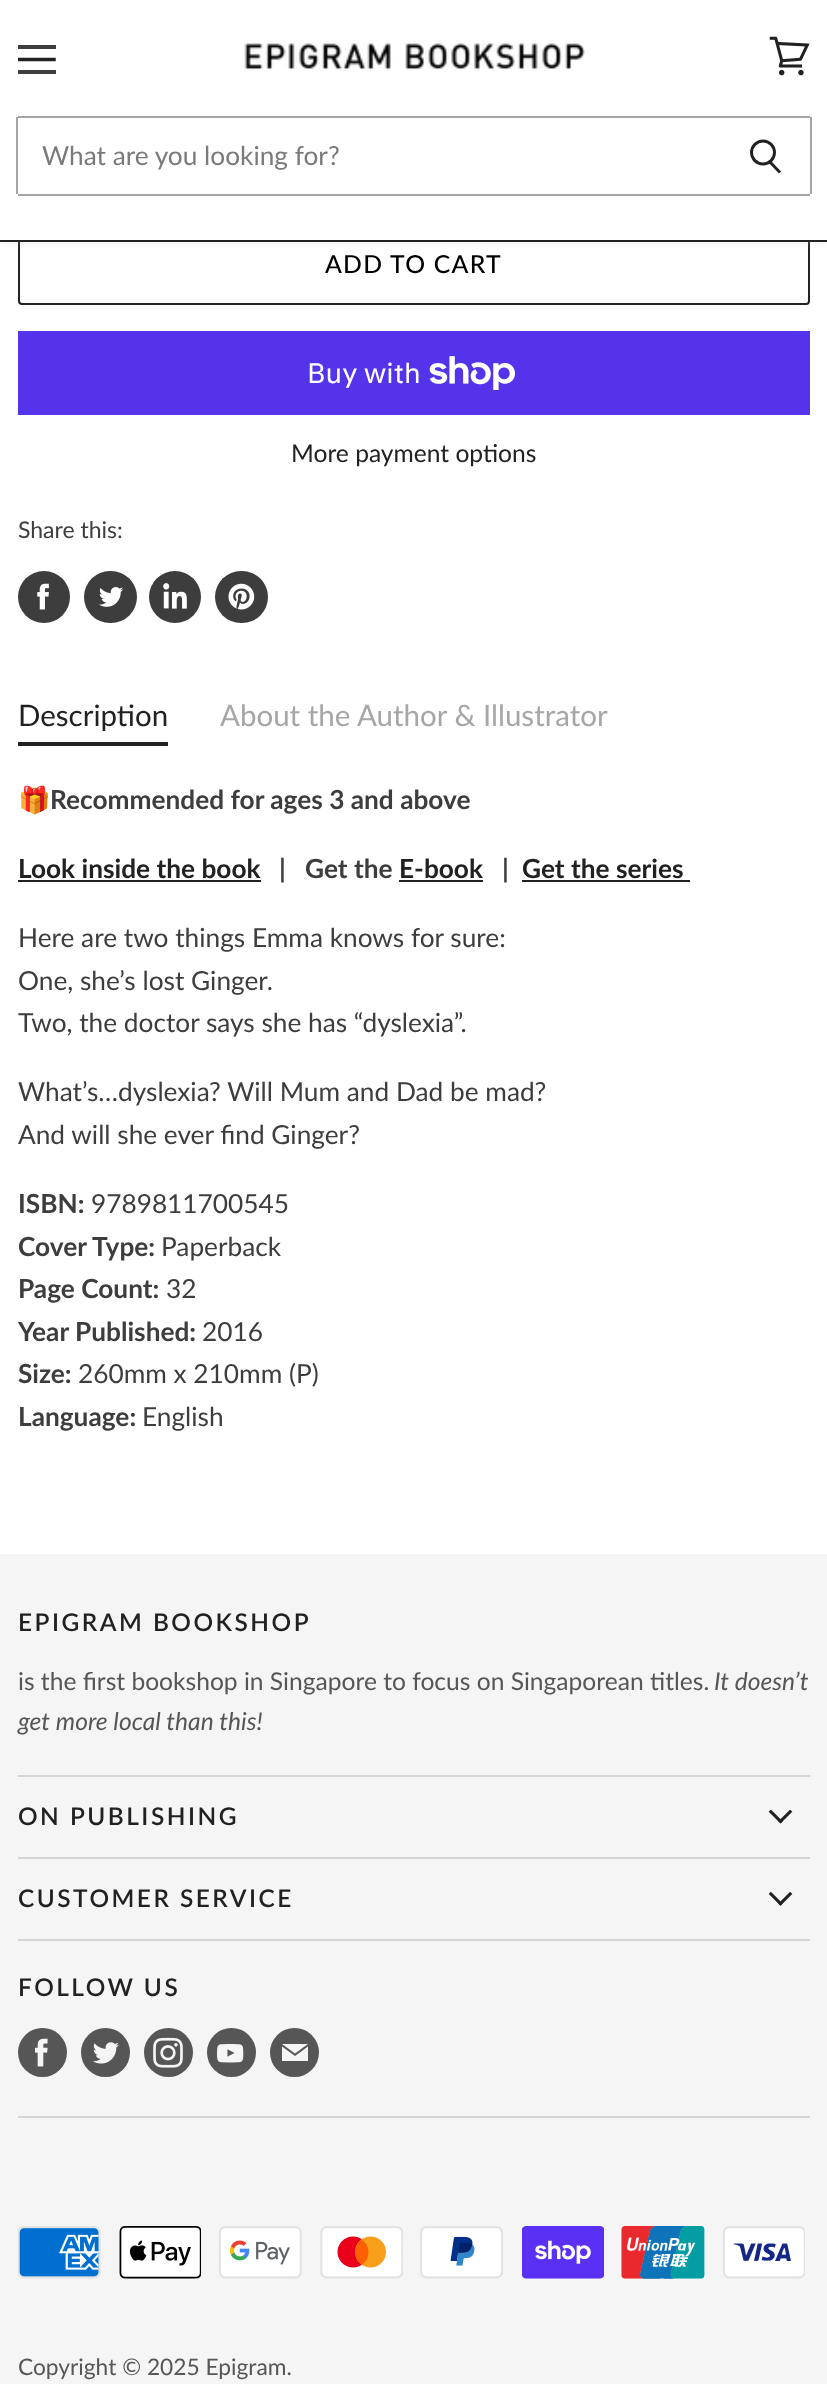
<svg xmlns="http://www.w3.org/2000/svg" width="827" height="2384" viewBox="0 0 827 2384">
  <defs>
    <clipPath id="clip1"><rect x="18" y="44" width="38" height="31"/></clipPath>
  </defs>
  <rect width="100%" height="100%" fill="rgb(255,255,255)"/>
  <rect x="19" y="225" width="790" height="79" rx="3" fill="none" stroke="rgb(35,35,35)" stroke-width="2"/>
  <rect x="0" y="2" width="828" height="241" fill="rgba(186,192,190,0.25)" filter="blur(3.5px)"/>
  <rect x="0" y="0" width="827" height="240" fill="rgb(255,255,255)"/>
  <rect x="0" y="240" width="827" height="2" fill="rgb(33,33,33)"/>
  <rect x="18" y="45" width="38" height="4" fill="rgb(61,61,61)"/>
  <g clip-path="url(#clip1)">
    <path d="M54 59.5H19" fill="none" stroke="rgb(33,33,33)" stroke-width="3.5" stroke-linecap="square" stroke-linejoin="round"/>
  </g>
  <rect x="18" y="70" width="38" height="4" fill="rgb(61,61,61)"/>
  <image x="769" y="36" width="41" height="40" href="pic1.png"/>
  <image x="244" y="40" width="341" height="31" href="pic2.png"/>
  <rect x="18" y="116" width="792" height="2" fill="rgb(161,166,164)"/>
  <rect x="810" y="117" width="2" height="77" fill="rgb(161,166,164)"/>
  <rect x="18" y="194" width="792" height="2" fill="rgb(161,166,164)"/>
  <path d="M780 172.5L770 162" fill="none" stroke="rgb(33,33,33)" stroke-width="2.9"/>
  <circle cx="763" cy="152.5" r="11.5" fill="none" stroke="rgb(33,33,33)" stroke-width="2.9"/>
  <rect x="16" y="117" width="2" height="77" fill="rgb(161,166,164)"/>
  <text x="42" y="165" font-family="Lato" font-size="26.25" fill="rgb(122,122,122)">What are you looking for?</text>
  <text x="325" y="273" font-family="Lato" font-size="24.75" font-weight="500" letter-spacing="1.25" fill="rgb(0,0,0)">ADD TO CART</text>
  <rect x="18" y="331" width="792" height="84" fill="rgb(84,51,235)"/>
  <text x="307" y="383" font-family="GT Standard" font-size="28" fill="rgb(255,255,255)">Buy with</text>
  <image x="429" y="356" width="86" height="34" href="pic3.png"/>
  <text x="291" y="462" font-family="Lato" font-size="24.6" fill="rgb(33,33,33)">More payment options</text>
  <text x="18" y="538" font-family="Lato" font-size="23" fill="rgb(61,61,61)">Share this:</text>
  <circle cx="44" cy="597" r="26" fill="rgb(61,61,61)"/>
  <image x="37" y="583" width="12" height="27" href="pic4.png"/>
  <rect x="84" y="571" width="53" height="52" rx="26" fill="rgb(61,61,61)"/>
  <image x="99" y="587" width="25" height="20" href="pic5.png"/>
  <circle cx="175" cy="597" r="26" fill="rgb(61,61,61)"/>
  <image x="163" y="583" width="24" height="26" href="pic6.png"/>
  <rect x="215" y="571" width="53" height="52" rx="26" fill="rgb(61,61,61)"/>
  <image x="228" y="583" width="27" height="27" href="pic7.png"/>
  <rect x="18" y="742" width="150" height="4" fill="rgb(33,33,33)"/>
  <text x="18" y="726" font-family="Lato" font-size="29.5" fill="rgb(33,33,33)">Description</text>
  <text x="220" y="726" font-family="Lato" font-size="29.5" fill="rgb(166,166,166)">About the Author &amp; Illustrator</text>
  <text x="18" y="809" font-family="Noto Color Emoji" font-size="26.25" font-weight="bold" fill="rgb(61,61,61)">🎁</text>
  <text x="50" y="809" font-family="Lato" font-size="26.25" font-weight="bold" fill="rgb(61,61,61)">Recommended for ages 3 and above</text>
  <text x="18" y="878" font-family="Lato" font-size="26.25" font-weight="bold" fill="rgb(33,33,33)">Look inside the book</text>
  <rect x="18" y="880" width="243" height="2" fill="rgb(33,33,33)"/>
  <text x="279" y="878" font-family="Lato" font-size="26.25" font-weight="bold" fill="rgb(61,61,61)" xml:space="preserve">|   Get the</text>
  <text x="399" y="878" font-family="Lato" font-size="26.25" font-weight="bold" fill="rgb(33,33,33)">E-book</text>
  <rect x="399" y="880" width="84" height="2" fill="rgb(33,33,33)"/>
  <text x="502" y="878" font-family="Lato" font-size="26.25" font-weight="bold" fill="rgb(61,61,61)">|</text>
  <text x="522" y="878" font-family="Lato" font-size="26.25" font-weight="bold" fill="rgb(33,33,33)">Get the series</text>
  <rect x="522" y="880" width="168" height="2" fill="rgb(33,33,33)"/>
  <g font-family="Lato" font-size="26.25" fill="rgb(61,61,61)">
    <text>
      <tspan x="18" y="947">Here are two things Emma knows for sure:</tspan>
      <tspan x="18" y="990">One, she’s lost Ginger.</tspan>
      <tspan x="18" y="1032">Two, the doctor says she has “dyslexia”.</tspan>
    </text>
    <text>
      <tspan x="18" y="1101">What’s…dyslexia? Will Mum and Dad be mad?</tspan>
      <tspan x="18" y="1144">And will she ever find Ginger?</tspan>
    </text>
  </g>
  <text x="18" y="1213" font-family="Lato" font-size="26.25" font-weight="bold" fill="rgb(61,61,61)">ISBN:</text>
  <text x="91" y="1213" font-family="Lato" font-size="26.25" fill="rgb(61,61,61)">9789811700545</text>
  <text x="18" y="1256" font-family="Lato" font-size="26.25" font-weight="bold" fill="rgb(61,61,61)">Cover Type:</text>
  <text x="161" y="1256" font-family="Lato" font-size="26.25" fill="rgb(61,61,61)">Paperback</text>
  <text x="18" y="1298" font-family="Lato" font-size="26.25" font-weight="bold" fill="rgb(61,61,61)">Page Count:</text>
  <text x="166" y="1298" font-family="Lato" font-size="26.25" fill="rgb(61,61,61)">32</text>
  <text x="18" y="1341" font-family="Lato" font-size="26.25" font-weight="bold" fill="rgb(61,61,61)">Year Published:</text>
  <text x="202" y="1341" font-family="Lato" font-size="26.25" fill="rgb(61,61,61)">2016</text>
  <text x="18" y="1383" font-family="Lato" font-size="26.25" font-weight="bold" fill="rgb(61,61,61)">Size:</text>
  <text x="78" y="1383" font-family="Lato" font-size="26.25" fill="rgb(61,61,61)">260mm x 210mm (P)</text>
  <text x="18" y="1426" font-family="Lato" font-size="26.25" font-weight="bold" fill="rgb(61,61,61)">Language:</text>
  <text x="142" y="1426" font-family="Lato" font-size="26.25" fill="rgb(61,61,61)">English</text>
  <rect x="0" y="1554" width="827" height="830" fill="rgb(245,245,245)"/>
  <rect x="18" y="1775" width="792" height="2" fill="rgb(213,213,213)"/>
  <text x="18" y="1631" font-family="Lato" font-size="24.4" font-weight="600" letter-spacing="2.5" fill="rgb(33,33,33)">EPIGRAM BOOKSHOP</text>
  <text x="18" y="1690" font-family="Lato" font-size="24.6" fill="rgb(86,86,86)">is the first bookshop in Singapore to focus on Singaporean titles.</text>
  <g font-family="Lato" font-size="24.6" font-style="italic" fill="rgb(86,86,86)">
    <text x="714" y="1690">It doesn’t</text>
    <text x="18" y="1730">get more local than this!</text>
  </g>
  <rect x="18" y="1857" width="792" height="2" fill="rgb(213,213,213)"/>
  <text x="18" y="1825" font-family="Lato" font-size="24.4" font-weight="600" letter-spacing="2.5" fill="rgb(33,33,33)">ON PUBLISHING</text>
  <image x="768" y="1810" width="25" height="14" href="pic8.png"/>
  <rect x="18" y="1939" width="792" height="2" fill="rgb(213,213,213)"/>
  <text x="18" y="1907" font-family="Lato" font-size="24.4" font-weight="600" letter-spacing="2.5" fill="rgb(33,33,33)">CUSTOMER SERVICE</text>
  <image x="768" y="1892" width="25" height="14" href="pic9.png"/>
  <rect x="18" y="2116" width="792" height="2" fill="rgb(213,213,213)"/>
  <text x="18" y="1996" font-family="Lato" font-size="24.4" font-weight="600" letter-spacing="2.5" fill="rgb(33,33,33)">FOLLOW US</text>
  <circle cx="42.5" cy="2052.5" r="24.5" fill="rgb(86,86,86)"/>
  <image x="35" y="2038" width="13" height="29" href="pic10.png"/>
  <circle cx="105.5" cy="2052.5" r="24.5" fill="rgb(86,86,86)"/>
  <image x="93" y="2042" width="26" height="22" href="pic11.png"/>
  <circle cx="168.5" cy="2052.5" r="24.5" fill="rgb(86,86,86)"/>
  <image x="153" y="2037" width="30" height="31" href="pic12.png"/>
  <circle cx="231.5" cy="2052.5" r="24.5" fill="rgb(86,86,86)"/>
  <image x="217" y="2044" width="27" height="19" href="pic13.png"/>
  <circle cx="294.5" cy="2052.5" r="24.5" fill="rgb(86,86,86)"/>
  <path d="M308 2044H282L295 2053.5ZM295 2056L282 2046.5V2061H308V2046.5Z" fill="rgb(245,245,245)" fill-rule="evenodd"/>
  <image x="18" y="2226" width="83" height="53" href="pic14.png"/>
  <image x="119" y="2226" width="82" height="53" href="pic15.png"/>
  <image x="219" y="2226" width="83" height="53" href="pic16.png"/>
  <image x="320" y="2226" width="83" height="53" href="pic17.png"/>
  <image x="420" y="2226" width="83" height="53" href="pic18.png"/>
  <image x="522" y="2226" width="82" height="53" href="pic19.png"/>
  <image x="621" y="2226" width="84" height="53" href="pic20.png"/>
  <image x="723" y="2226" width="82" height="53" href="pic21.png"/>
  <text x="18" y="2375" font-family="Lato" font-size="22.75" fill="rgb(86,86,86)">Copyright © 2025 Epigram.</text>
</svg>
